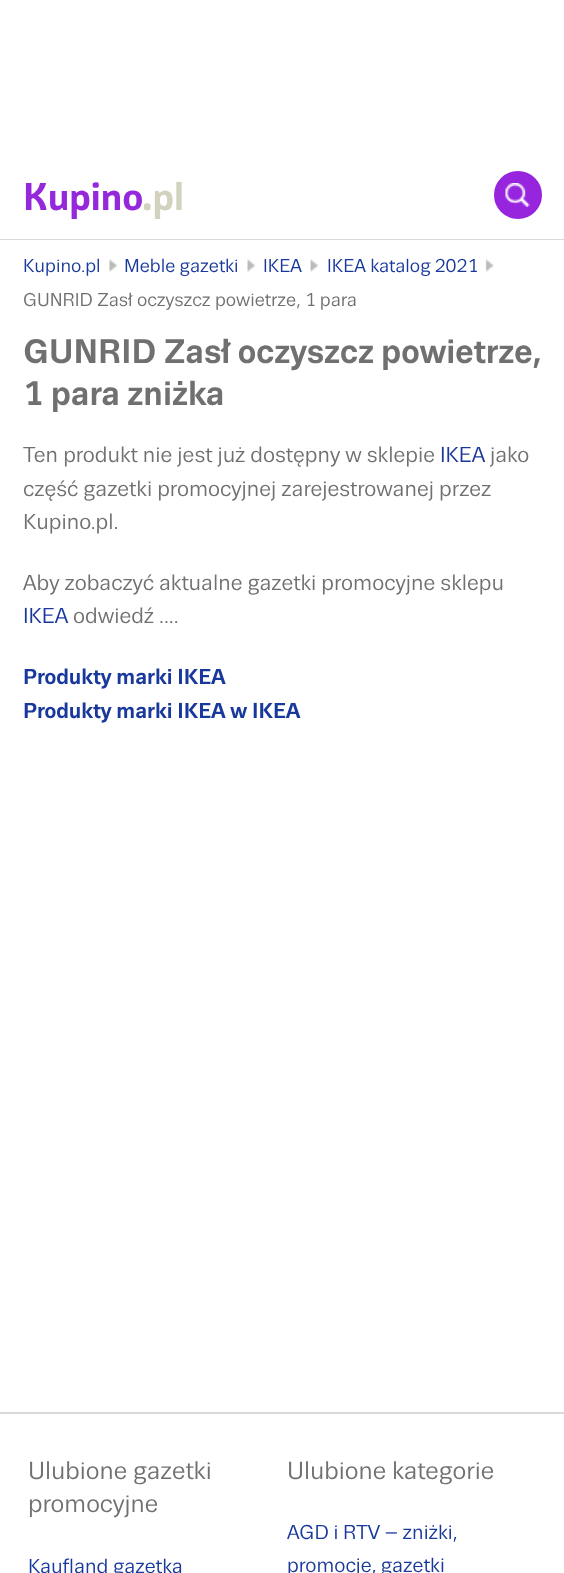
<svg xmlns="http://www.w3.org/2000/svg" width="564" height="1573" viewBox="0 0 564 1573">
  <rect width="100%" height="100%" fill="rgb(255,255,255)"/>
  <rect x="0" y="239" width="564" height="1" fill="rgb(217,217,217)"/>
  <text x="23" y="210" font-family="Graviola" font-size="37.5" font-weight="bold" fill="rgb(150,40,220)">Kupino</text>
  <text x="142" y="210" font-family="Graviola" font-size="37.5" font-weight="bold" fill="rgb(210,210,190)">.pl</text>
  <circle cx="518" cy="195" r="23" fill="rgb(151,37,221)" stroke="rgb(151,37,221)" stroke-width="2"/>
  <image x="505" y="183" width="25" height="24" href="pic1.png"/>
  <text x="23" y="272" font-family="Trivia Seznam" font-size="18" fill="rgb(24,56,156)">Kupino.pl</text>
  <image x="109" y="259" width="9" height="13" href="pic2.png"/>
  <text x="124" y="272" font-family="Trivia Seznam" font-size="18" fill="rgb(24,56,156)">Meble gazetki</text>
  <image x="247" y="259" width="9" height="13" href="pic2.png"/>
  <text x="263" y="272" font-family="Trivia Seznam" font-size="18" fill="rgb(24,56,156)">IKEA</text>
  <image x="310" y="259" width="9" height="13" href="pic3.png"/>
  <text x="327" y="272" font-family="Trivia Seznam" font-size="18" fill="rgb(24,56,156)">IKEA katalog 2021</text>
  <image x="485" y="259" width="9" height="13" href="pic4.png"/>
  <text x="23" y="306" font-family="Trivia Seznam" font-size="18" fill="rgb(112,112,112)">GUNRID Zasł oczyszcz powietrze, 1 para</text>
  <g font-family="Trivia Seznam" font-size="33" font-weight="bold" fill="rgb(112,112,112)">
    <text>
      <tspan x="23" y="363">GUNRID Zasł oczyszcz powietrze,</tspan>
      <tspan x="23" y="405">1 para zniżka</tspan>
    </text>
  </g>
  <text x="23" y="462" font-family="Trivia Seznam" font-size="21" fill="rgb(112,112,112)">Ten produkt nie jest już dostępny w sklepie</text>
  <text x="440" y="462" font-family="Trivia Seznam" font-size="21" fill="rgb(24,56,156)">IKEA</text>
  <g font-family="Trivia Seznam" font-size="21" fill="rgb(112,112,112)">
    <text x="490" y="462">jako</text>
    <text>
      <tspan x="23" y="496">część gazetki promocyjnej zarejestrowanej przez</tspan>
      <tspan x="23" y="529">Kupino.pl.</tspan>
    </text>
    <text x="23" y="590">Aby zobaczyć aktualne gazetki promocyjne sklepu</text>
  </g>
  <text x="23" y="623" font-family="Trivia Seznam" font-size="21" fill="rgb(24,56,156)">IKEA</text>
  <text x="73" y="623" font-family="Trivia Seznam" font-size="21" fill="rgb(112,112,112)">odwiedź ....</text>
  <g font-family="Trivia Seznam" font-size="21" font-weight="bold" fill="rgb(24,56,156)">
    <text>
      <tspan x="23" y="684">Produkty marki IKEA</tspan>
      <tspan x="23" y="718">Produkty marki IKEA w IKEA</tspan>
    </text>
  </g>
  <rect x="0" y="1412" width="564" height="2" fill="rgb(217,217,217)"/>
  <g font-family="Trivia Seznam" font-size="24" fill="rgb(112,112,112)">
    <text>
      <tspan x="28" y="1479">Ulubione gazetki</tspan>
      <tspan x="28" y="1512">promocyjne</tspan>
    </text>
  </g>
  <text x="28" y="1573" font-family="Trivia Seznam" font-size="19.5" fill="rgb(24,56,156)">Kaufland gazetka</text>
  <text x="287" y="1479" font-family="Trivia Seznam" font-size="24" fill="rgb(112,112,112)">Ulubione kategorie</text>
  <g font-family="Trivia Seznam" font-size="19.5" fill="rgb(24,56,156)">
    <text>
      <tspan x="287" y="1539">AGD i RTV – zniżki,</tspan>
      <tspan x="287" y="1572">promocje, gazetki</tspan>
    </text>
  </g>
</svg>
